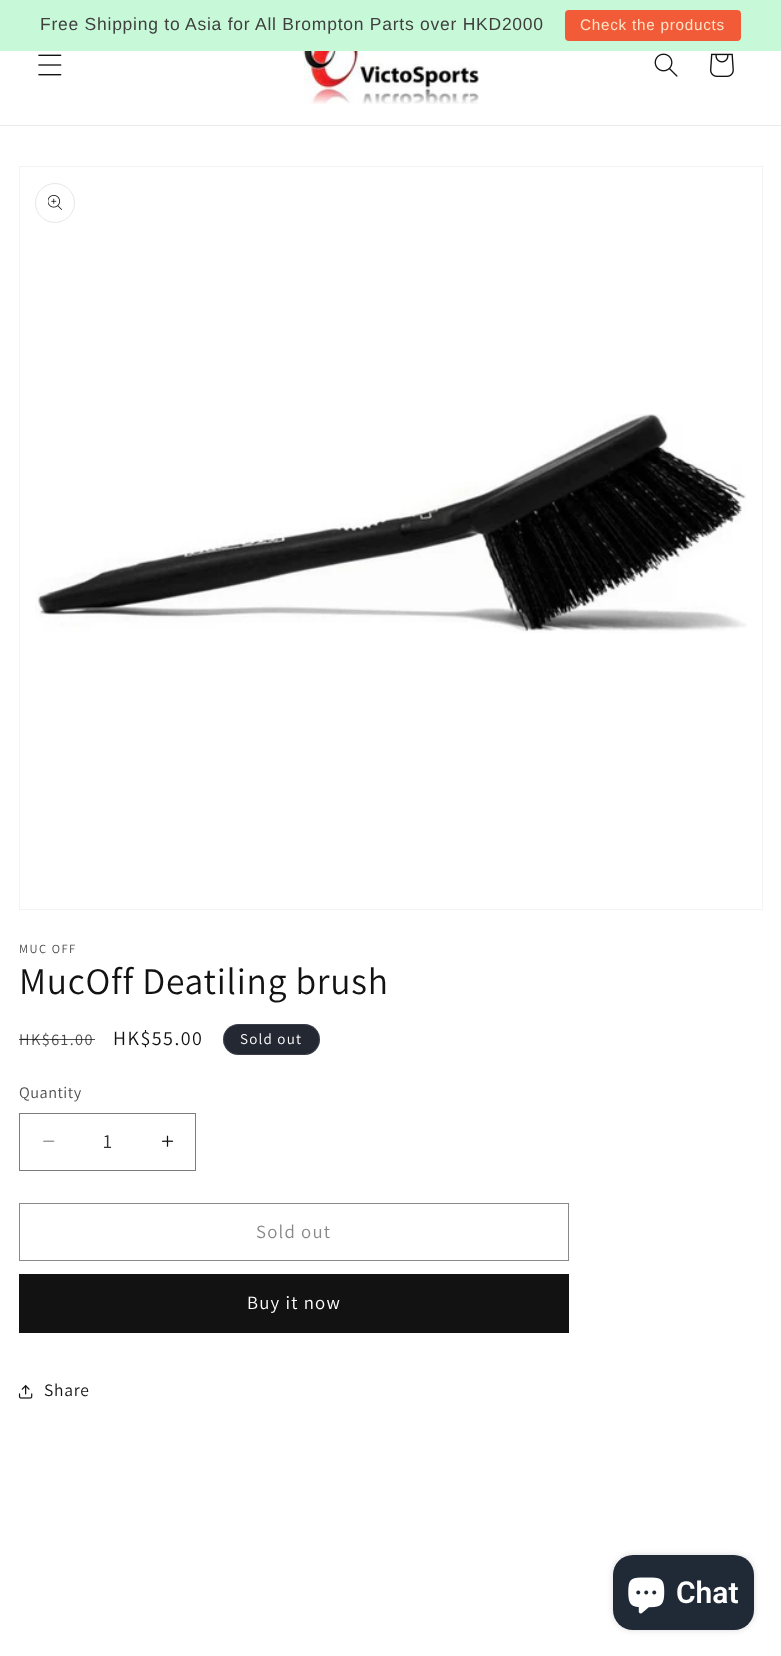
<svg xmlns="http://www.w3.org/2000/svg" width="781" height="1656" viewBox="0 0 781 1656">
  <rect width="100%" height="100%" fill="rgb(255,255,255)"/>
  <rect x="0" y="0" width="781" height="51" fill="rgb(199,249,216)"/>
  <text x="40" y="30" font-family="Liberation Sans" font-size="17.5" letter-spacing="0.75" fill="rgb(63,63,63)">Free Shipping to Asia for All Brompton Parts over HKD2000</text>
  <rect x="565" y="10" width="176" height="31" rx="4" fill="rgb(242,91,55)"/>
  <text x="580" y="30" font-family="Liberation Sans" font-size="15.25" letter-spacing="0.75" fill="rgb(255,227,201)">Check the products</text>
  <rect x="0" y="125" width="781" height="1" fill="rgb(236,236,236)"/>
  <image x="38" y="54" width="24" height="22" href="pic1.png"/>
  <image x="303" y="51" width="176" height="53" href="pic2.png"/>
  <image x="654" y="53" width="24" height="24" href="pic3.png"/>
  <image x="710" y="53" width="24" height="24" href="pic4.png"/>
  <rect x="19.5" y="166.5" width="743" height="743" fill="none" stroke="rgb(243,243,243)"/>
  <circle cx="55" cy="203" r="19.5" fill="none" stroke="rgb(231,231,231)"/>
  <image x="48" y="195" width="14" height="15" href="pic5.png"/>
  <image x="35" y="414" width="712" height="219" href="pic6.png"/>
  <text x="19" y="953" font-family="Assistant" font-size="12.5" letter-spacing="1.5" fill="rgb(77,77,77)">MUC OFF</text>
  <text x="19" y="994" font-family="Assistant" font-size="37.5" letter-spacing="0.75" fill="rgb(18,18,18)">MucOff Deatiling brush</text>
  <text x="19" y="1045" font-family="Assistant" font-size="16.25" letter-spacing="1.5" fill="rgb(77,77,77)">HK$61.00</text>
  <rect x="19" y="1039" width="76" height="1" fill="rgba(18,18,18,0.75)"/>
  <text x="113" y="1045" font-family="Assistant" font-size="20" letter-spacing="1.5" fill="rgb(18,18,18)">HK$55.00</text>
  <rect x="223" y="1024" width="97" height="31" rx="15.5" fill="rgb(36,40,51)"/>
  <rect x="223.5" y="1024.5" width="96" height="30" rx="15" fill="none" stroke="rgba(255,255,255,0.1)"/>
  <text x="240" y="1044" font-family="Assistant" font-size="15" letter-spacing="1.25" fill="rgb(255,255,255)">Sold out</text>
  <text x="19" y="1098" font-family="Assistant" font-size="16.25" letter-spacing="0.5" fill="rgb(77,77,77)">Quantity</text>
  <image x="43" y="1140" width="12" height="2" href="pic7.png"/>
  <image x="161" y="1135" width="13" height="12" href="pic8.png"/>
  <rect x="19.5" y="1113.5" width="176" height="57" fill="none" stroke="rgb(125,125,125)"/>
  <text x="103" y="1148" font-family="Assistant" font-size="20" fill="rgb(54,54,54)">1</text>
  <rect x="19.5" y="1203.5" width="549" height="57" fill="none" stroke="rgb(137,137,137)"/>
  <text x="256" y="1238" font-family="Assistant" font-size="18.75" letter-spacing="1.25" fill="rgb(137,137,137)">Sold out</text>
  <rect x="19" y="1274" width="550" height="59" fill="rgb(18,18,18)"/>
  <text x="247" y="1309" font-family="Assistant" font-size="18.75" letter-spacing="1.25" fill="rgb(255,255,255)">Buy it now</text>
  <image x="18" y="1385" width="15" height="14" href="pic9.png"/>
  <text x="44" y="1396" font-family="Assistant" font-size="17.5" letter-spacing="0.75" fill="rgb(18,18,18)">Share</text>
  <rect x="613" y="1555" width="141" height="75" rx="20" fill="rgba(0,0,0,0.15)" filter="blur(3px)"/>
  <rect x="613" y="1555" width="141" height="75" rx="20" fill="rgb(32,42,54)"/>
  <image x="628" y="1577" width="37" height="37" href="pic10.png"/>
  <text x="676" y="1603" font-family="Roboto" font-size="30" font-weight="600" fill="rgb(255,255,255)">Chat</text>
</svg>
